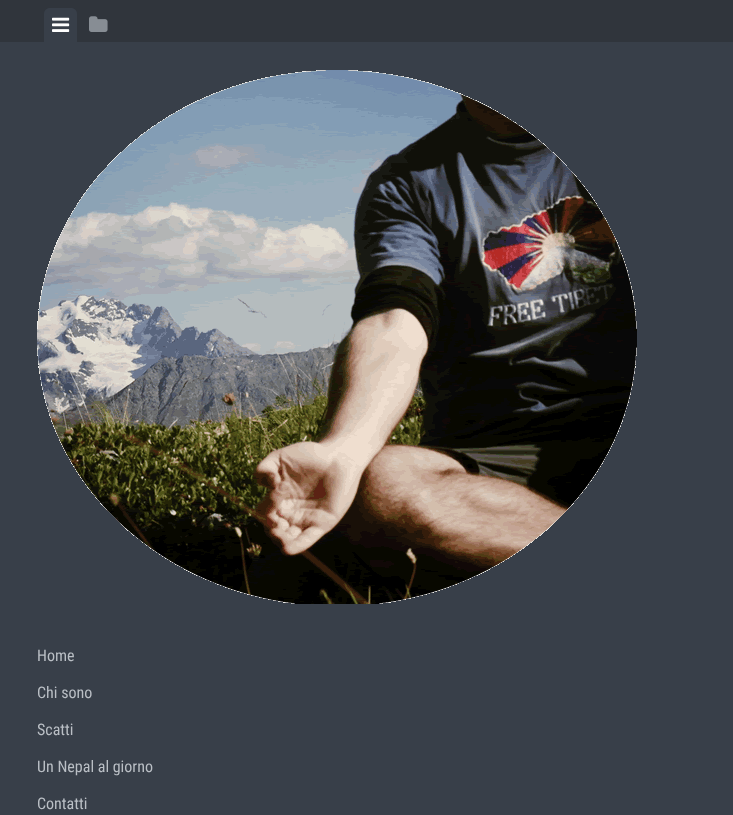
<svg xmlns="http://www.w3.org/2000/svg" width="733" height="815" viewBox="0 0 733 815">
  <rect width="100%" height="100%" fill="rgb(56,63,73)"/>
  <rect x="0" y="0" width="733" height="42" fill="rgb(48,53,60)"/>
  <path d="M50 8H71C74.5 8 77 10.5 77 14V42H44V14C44 10.5 46.5 8 50 8Z" fill="rgb(56,63,73)"/>
  <image x="52" y="17" width="18" height="15" href="pic1.png"/>
  <image x="89" y="16" width="19" height="16" href="pic2.png"/>
  <image x="37" y="70" width="600" height="534" href="pic3.png"/>
  <g font-family="Roboto Condensed" font-size="16" fill="rgb(186,191,197)">
    <text x="37" y="661">Home</text>
    <text x="37" y="698">Chi sono</text>
    <text x="37" y="735">Scatti</text>
    <text x="37" y="772">Un Nepal al giorno</text>
    <text x="37" y="809">Contatti</text>
  </g>
</svg>
